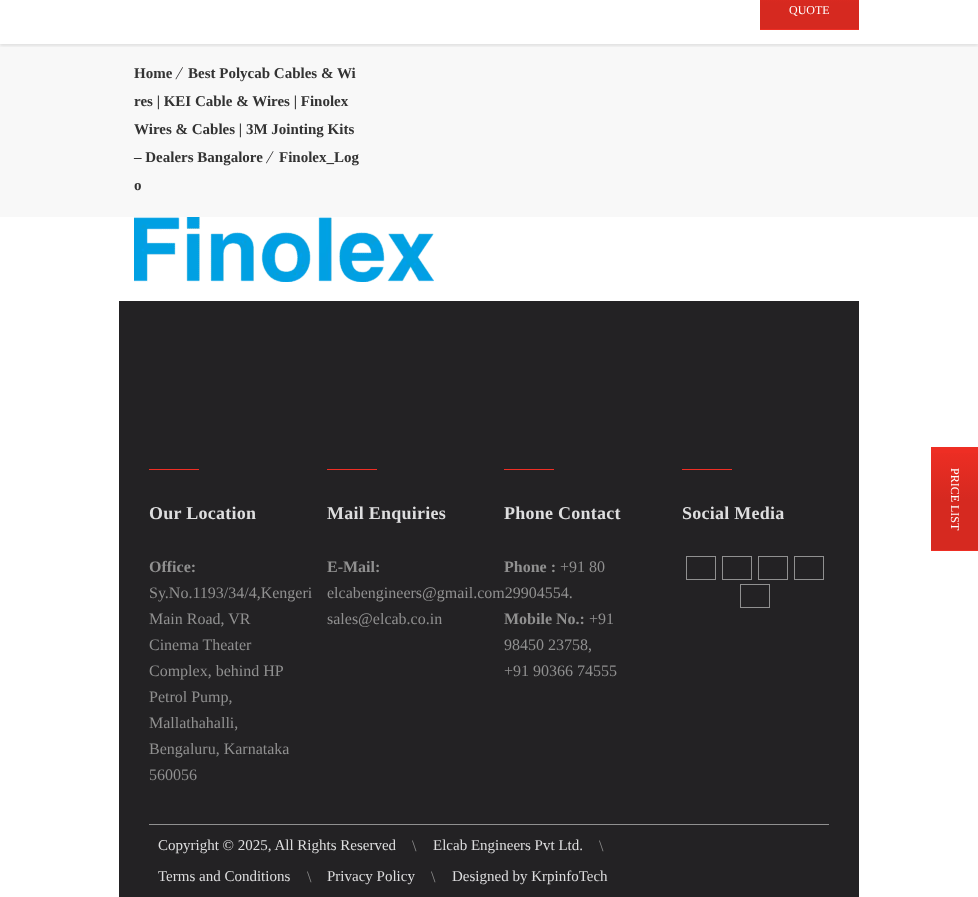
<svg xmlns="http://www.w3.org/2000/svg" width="978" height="897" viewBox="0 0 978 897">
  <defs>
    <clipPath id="clip1"><rect x="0" y="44" width="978" height="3"/></clipPath>
    <linearGradient id="g1" gradientUnits="userSpaceOnUse" x1="858" y1="-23" x2="858" y2="29"><stop offset="0" stop-color="rgb(238,46,36)"/><stop offset="0.5" stop-color="rgb(214,41,32)"/><stop offset="1" stop-color="rgb(214,41,32)"/></linearGradient>
    <linearGradient id="g2" gradientUnits="userSpaceOnUse" x1="977" y1="448" x2="977" y2="550"><stop offset="0" stop-color="rgb(238,46,36)"/><stop offset="0.5" stop-color="rgb(214,41,32)"/><stop offset="1" stop-color="rgb(214,41,32)"/></linearGradient>
  </defs>
  <rect width="100%" height="100%" fill="rgb(255,255,255)"/>
  <rect x="0" y="44" width="978" height="173" fill="rgb(248,248,248)"/>
  <text x="134" y="78" font-family="Liberation Serif" font-size="15" font-weight="bold" fill="rgb(51,51,51)">Home</text>
  <path d="M182.5 67L183 67.5L176 79.5L175.5 79Z" fill="rgb(35,34,36)"/>
  <g font-family="Liberation Serif" font-size="15" font-weight="bold" fill="rgb(51,51,51)">
    <text x="188" y="78">Best Polycab Cables &amp; Wi</text>
    <text>
      <tspan x="134" y="106">res | KEI Cable &amp; Wires | Finolex</tspan>
      <tspan x="134" y="134">Wires &amp; Cables | 3M Jointing Kits</tspan>
      <tspan x="134" y="162">– Dealers Bangalore</tspan>
    </text>
  </g>
  <path d="M273 151L273.5 151.5L266.5 163.5L266 163Z" fill="rgb(35,34,36)"/>
  <g font-family="Liberation Serif" font-size="15" font-weight="bold" fill="rgb(51,51,51)">
    <text x="279" y="162">Finolex_Log</text>
    <text x="134" y="190">o</text>
  </g>
  <g clip-path="url(#clip1)">
    <rect x="0" y="-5" width="978" height="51" fill="rgba(0,0,0,0.09)" filter="blur(1.5px)"/>
  </g>
  <rect x="760" y="29" width="99" height="1" fill="rgb(238,46,36)"/>
  <rect x="760" y="0" width="99" height="29" fill="url(#g1)"/>
  <text x="789" y="14" font-family="Liberation Serif" font-size="12" fill="rgb(255,255,255)">QUOTE</text>
  <rect x="931" y="447" width="47" height="104" fill="rgb(238,46,36)"/>
  <rect x="931" y="453" width="47" height="97" fill="url(#g2)"/>
  <text x="951" y="468" transform="rotate(90 951 468)" font-family="Liberation Serif" font-size="12" fill="rgb(255,255,255)">PRICE LIST</text>
  <image x="134" y="217" width="300" height="65" href="pic1.png"/>
  <rect x="119" y="301" width="740" height="596" fill="rgb(35,34,36)"/>
  <rect x="149" y="469" width="50" height="1" fill="rgb(238,46,36)"/>
  <text x="149" y="519" font-family="Liberation Serif" font-size="18" font-weight="bold" letter-spacing="0.25" fill="rgb(222,222,223)">Our Location</text>
  <text x="149" y="572" font-family="Liberation Serif" font-size="16" font-weight="bold" fill="rgb(144,144,144)">Office:</text>
  <g font-family="Liberation Serif" font-size="16" fill="rgb(144,144,144)">
    <text>
      <tspan x="149" y="598">Sy.No.1193/34/4,Kengeri</tspan>
      <tspan x="149" y="624">Main Road, VR</tspan>
      <tspan x="149" y="650">Cinema Theater</tspan>
      <tspan x="149" y="676">Complex, behind HP</tspan>
      <tspan x="149" y="702">Petrol Pump,</tspan>
      <tspan x="149" y="728">Mallathahalli,</tspan>
      <tspan x="149" y="754">Bengaluru, Karnataka</tspan>
      <tspan x="149" y="780">560056</tspan>
    </text>
  </g>
  <rect x="327" y="469" width="50" height="1" fill="rgb(238,46,36)"/>
  <text x="327" y="519" font-family="Liberation Serif" font-size="18" font-weight="bold" letter-spacing="0.25" fill="rgb(222,222,223)">Mail Enquiries</text>
  <text x="327" y="572" font-family="Liberation Serif" font-size="16" font-weight="bold" fill="rgb(144,144,144)">E-Mail:</text>
  <g font-family="Liberation Serif" font-size="16" fill="rgb(144,144,144)">
    <text>
      <tspan x="327" y="598">elcabengineers@gmail.com29904554.</tspan>
      <tspan x="327" y="624">sales@elcab.co.in</tspan>
    </text>
  </g>
  <rect x="504" y="469" width="50" height="1" fill="rgb(238,46,36)"/>
  <text x="504" y="519" font-family="Liberation Serif" font-size="18" font-weight="bold" letter-spacing="0.25" fill="rgb(222,222,223)">Phone Contact</text>
  <text x="504" y="572" font-family="Liberation Serif" font-size="16" font-weight="bold" fill="rgb(144,144,144)">Phone :</text>
  <text x="560" y="572" font-family="Liberation Serif" font-size="16" fill="rgb(144,144,144)">+91 80</text>
  <text x="504" y="624" font-family="Liberation Serif" font-size="16" font-weight="bold" fill="rgb(144,144,144)">Mobile No.:</text>
  <g font-family="Liberation Serif" font-size="16" fill="rgb(144,144,144)">
    <text x="589" y="624">+91</text>
    <text>
      <tspan x="504" y="650">98450 23758,</tspan>
      <tspan x="504" y="676">+91 90366 74555</tspan>
    </text>
  </g>
  <rect x="682" y="469" width="50" height="1" fill="rgb(238,46,36)"/>
  <text x="682" y="519" font-family="Liberation Serif" font-size="18" font-weight="bold" letter-spacing="0.25" fill="rgb(222,222,223)">Social Media</text>
  <rect x="686.5" y="556.5" width="29" height="23" fill="none" stroke="rgb(144,144,144)"/>
  <rect x="722.5" y="556.5" width="29" height="23" fill="none" stroke="rgb(144,144,144)"/>
  <rect x="758.5" y="556.5" width="29" height="23" fill="none" stroke="rgb(144,144,144)"/>
  <rect x="794.5" y="556.5" width="29" height="23" fill="none" stroke="rgb(144,144,144)"/>
  <rect x="740.5" y="584.5" width="29" height="23" fill="none" stroke="rgb(144,144,144)"/>
  <rect x="149" y="824" width="680" height="1" fill="rgb(144,144,144)"/>
  <text x="158" y="850" font-family="Liberation Serif" font-size="15" fill="rgb(222,222,223)">Copyright © 2025, All Rights Reserved</text>
  <text x="412" y="851" font-family="Liberation Serif" font-size="16" fill="rgb(144,144,144)">\</text>
  <text x="433" y="850" font-family="Liberation Serif" font-size="15" fill="rgb(222,222,223)">Elcab Engineers Pvt Ltd.</text>
  <text x="599" y="851" font-family="Liberation Serif" font-size="16" fill="rgb(144,144,144)">\</text>
  <text x="158" y="881" font-family="Liberation Serif" font-size="15" fill="rgb(222,222,223)">Terms and Conditions</text>
  <text x="307" y="882" font-family="Liberation Serif" font-size="16" fill="rgb(144,144,144)">\</text>
  <text x="327" y="881" font-family="Liberation Serif" font-size="15" fill="rgb(222,222,223)">Privacy Policy</text>
  <text x="431" y="882" font-family="Liberation Serif" font-size="16" fill="rgb(144,144,144)">\</text>
  <text x="452" y="881" font-family="Liberation Serif" font-size="15" fill="rgb(222,222,223)">Designed by KrpinfoTech</text>
</svg>
